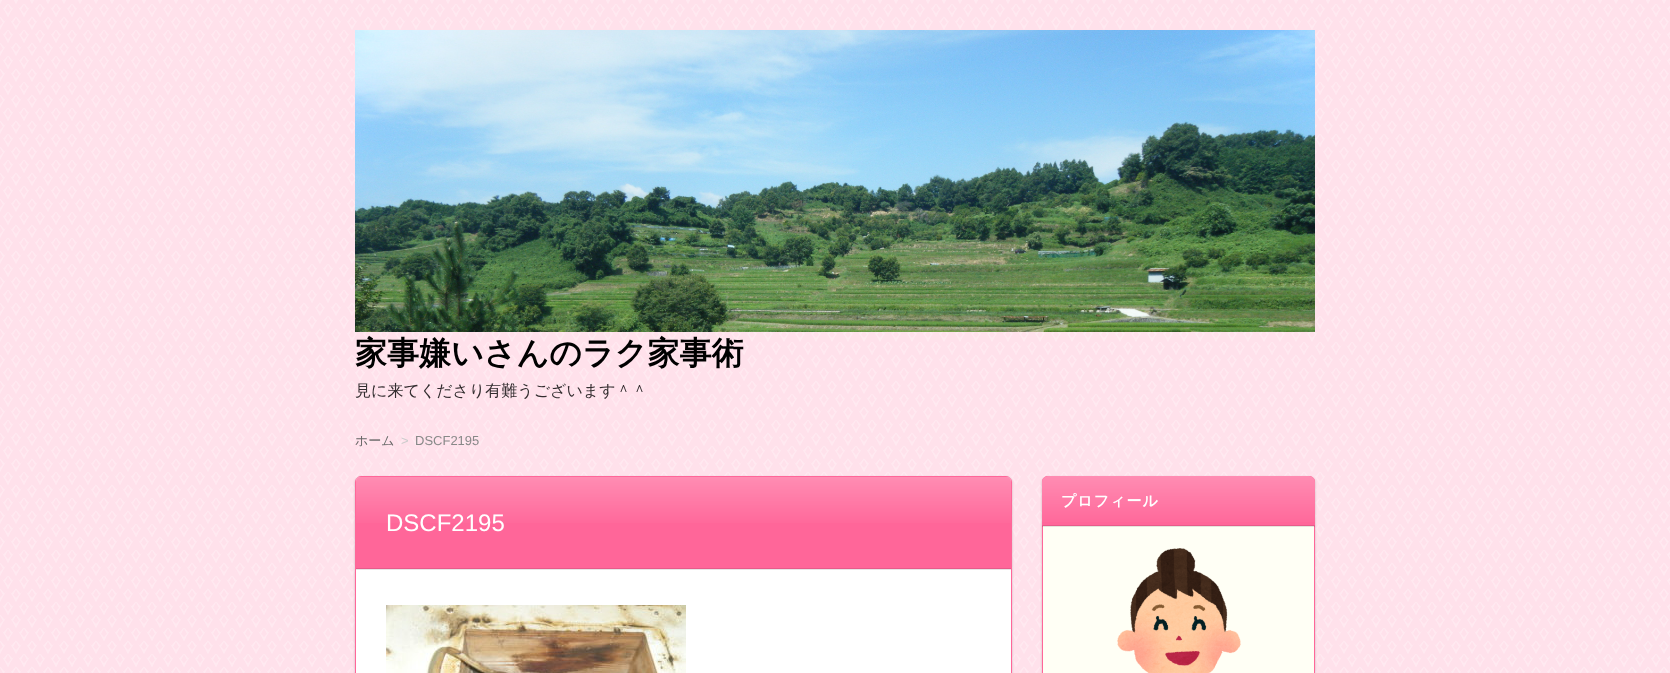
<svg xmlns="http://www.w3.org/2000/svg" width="1670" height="673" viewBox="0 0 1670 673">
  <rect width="100%" height="100%" fill="rgb(255,225,235)"/>
  <image x="0" y="0" width="1670" height="673" href="pic1.png"/>
  <image x="355" y="30" width="960" height="302" href="pic2.png"/>
  <text x="355" y="364" font-family="WenQuanYi Zen Hei" font-size="32" font-weight="bold" fill="rgb(0,0,0)">家事嫌いさんのラク家事術</text>
  <text x="355" y="396" font-family="WenQuanYi Zen Hei" font-size="16" font-weight="500" fill="rgb(51,45,47)">見に来てくださり有難うございます＾＾</text>
  <text x="355" y="445" font-family="WenQuanYi Zen Hei" font-size="13" font-weight="500" fill="rgb(102,102,102)">ホーム</text>
  <text x="401" y="445" font-family="Liberation Sans" font-size="13" fill="rgb(204,204,204)">&gt;</text>
  <text x="415" y="445" font-family="Liberation Sans" font-size="13" fill="rgb(136,136,136)">DSCF2195</text>
  <rect x="1042" y="477" width="273" height="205" rx="6" fill="rgba(0,0,0,0.2)" filter="blur(1px)"/>
  <rect x="1042.5" y="476.5" width="272" height="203" rx="5.5" fill="rgb(255,255,245)" stroke="rgb(255,102,153)"/>
  <rect x="1042" y="526" width="273" height="1" fill="rgba(0,0,0,0.1)"/>
  <path d="M1048 476H1309C1312.5 476 1315 478.5 1315 482V526H1042V482C1042 478.5 1044.5 476 1048 476Z" fill="rgb(255,102,153)"/>
  <image x="1042" y="476" width="273" height="46" href="pic3.png"/>
  <rect x="1042" y="525" width="273" height="1" fill="rgb(230,92,138)"/>
  <text x="1061" y="506" font-family="WenQuanYi Zen Hei" font-size="15" font-weight="bold" letter-spacing="1" fill="rgb(255,255,255)">プロフィール</text>
  <image x="1117" y="548" width="124" height="125" href="pic4.png"/>
  <rect x="355" y="477" width="657" height="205" rx="6" fill="rgba(0,0,0,0.2)" filter="blur(1px)"/>
  <rect x="355.5" y="476.5" width="656" height="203" rx="5.5" fill="rgb(255,255,255)" stroke="rgb(255,102,153)"/>
  <rect x="356" y="569" width="655" height="1" fill="rgb(230,230,230)"/>
  <path d="M360 477H1007C1009 477 1011 479 1011 481V569H356V481C356 479 358 477 360 477Z" fill="rgb(255,102,153)"/>
  <image x="356" y="477" width="655" height="46" href="pic5.png"/>
  <rect x="356" y="568" width="655" height="1" fill="rgb(230,92,138)"/>
  <text x="386" y="531" font-family="Liberation Sans" font-size="24" fill="rgb(255,255,255)">DSCF2195</text>
  <image x="386" y="605" width="300" height="68" href="pic6.png"/>
</svg>
